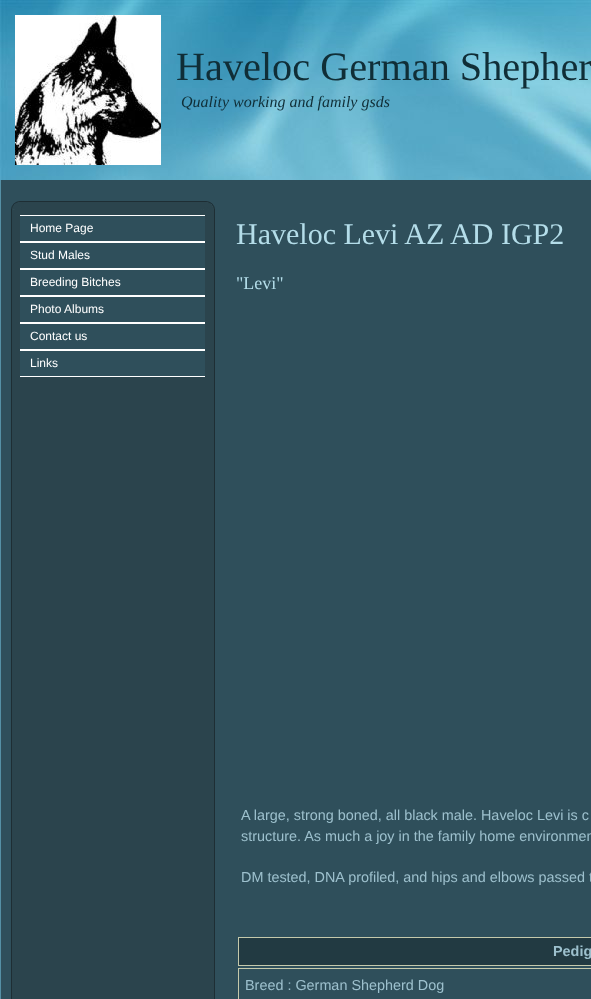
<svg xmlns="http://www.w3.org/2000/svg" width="591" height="999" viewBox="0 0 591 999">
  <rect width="100%" height="100%" fill="rgb(47,79,91)"/>
  <image x="0" y="0" width="591" height="180" href="pic1.png"/>
  <image x="15" y="15" width="146" height="150" href="pic2.png"/>
  <text x="176" y="80" font-family="Liberation Serif" font-size="40.25" fill="rgb(16,46,55)">Haveloc German Shepher</text>
  <text x="181" y="107" font-family="Liberation Serif" font-size="16" font-style="italic" fill="rgb(16,46,55)">Quality working and family gsds</text>
  <image x="0" y="180" width="215" height="30" href="pic3.png"/>
  <image x="0" y="210" width="215" height="789" href="pic4.png"/>
  <rect x="20" y="216" width="185" height="160" fill="rgb(47,79,91)"/>
  <rect x="20" y="215" width="185" height="1" fill="rgb(255,255,255)"/>
  <rect x="20" y="241" width="185" height="2" fill="rgb(255,255,255)"/>
  <text x="30" y="232" font-family="Liberation Sans" font-size="12" fill="rgb(255,255,255)">Home Page</text>
  <rect x="20" y="268" width="185" height="2" fill="rgb(255,255,255)"/>
  <text x="30" y="259" font-family="Liberation Sans" font-size="12" fill="rgb(255,255,255)">Stud Males</text>
  <rect x="20" y="295" width="185" height="2" fill="rgb(255,255,255)"/>
  <text x="30" y="286" font-family="Liberation Sans" font-size="12" fill="rgb(255,255,255)">Breeding Bitches</text>
  <rect x="20" y="322" width="185" height="2" fill="rgb(255,255,255)"/>
  <text x="30" y="313" font-family="Liberation Sans" font-size="12" fill="rgb(255,255,255)">Photo Albums</text>
  <rect x="20" y="349" width="185" height="2" fill="rgb(255,255,255)"/>
  <text x="30" y="340" font-family="Liberation Sans" font-size="12" fill="rgb(255,255,255)">Contact us</text>
  <rect x="20" y="376" width="185" height="1" fill="rgb(255,255,255)"/>
  <text x="30" y="367" font-family="Liberation Sans" font-size="12" fill="rgb(255,255,255)">Links</text>
  <text x="236" y="244" font-family="Liberation Serif" font-size="30" fill="rgb(180,221,233)">Haveloc Levi AZ AD IGP2</text>
  <text x="236" y="289" font-family="Liberation Serif" font-size="18" fill="rgb(180,221,233)">"Levi"</text>
  <g font-family="Liberation Sans" font-size="14.4" fill="rgb(157,192,205)">
    <text>
      <tspan x="241" y="820">A large, strong boned, all black male. Haveloc Levi is c</tspan>
      <tspan x="241" y="841">structure. As much a joy in the family home environmen</tspan>
    </text>
    <text x="241" y="882">DM tested, DNA profiled, and hips and elbows passed t</text>
  </g>
  <rect x="238.5" y="937.5" width="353" height="28" fill="rgb(34,58,66)" stroke="rgb(197,201,171)"/>
  <text x="553" y="956" font-family="Liberation Sans" font-size="14.4" font-weight="bold" fill="rgb(157,192,205)">Pedig</text>
  <rect x="238.5" y="968.5" width="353" height="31" fill="none" stroke="rgb(197,201,171)"/>
  <text x="245" y="990" font-family="Liberation Sans" font-size="14.4" fill="rgb(157,192,205)">Breed : German Shepherd Dog</text>
</svg>
